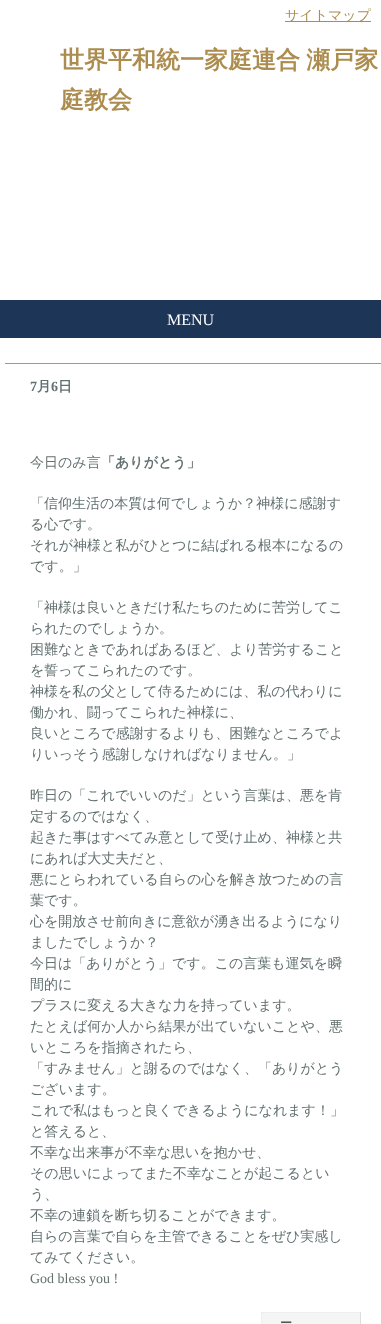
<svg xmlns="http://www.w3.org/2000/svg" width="381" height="1324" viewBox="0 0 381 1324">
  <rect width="100%" height="100%" fill="rgb(255,255,255)"/>
  <rect x="285" y="21" width="86" height="1" fill="rgb(173,141,79)"/>
  <text x="285" y="20" font-family="WenQuanYi Zen Hei" font-size="14" font-weight="500" fill="rgb(173,141,79)">サイトマップ</text>
  <g font-family="WenQuanYi Zen Hei" font-size="24" font-weight="bold" fill="rgb(173,141,79)">
    <text>
      <tspan x="60" y="68" word-spacing="-1">世界平和統一家庭連合 瀬戸家</tspan>
      <tspan x="60" y="108">庭教会</tspan>
    </text>
  </g>
  <rect x="0" y="300" width="381" height="38" fill="rgb(29,53,87)"/>
  <text x="167" y="325" font-family="Liberation Serif" font-size="16" fill="rgb(255,255,255)">MENU</text>
  <rect x="5" y="363" width="376" height="1" fill="rgb(153,153,153)"/>
  <text x="30" y="391" font-family="Liberation Serif" font-size="14" font-weight="bold" fill="rgb(99,112,112)">7</text>
  <text x="37" y="391" font-family="WenQuanYi Zen Hei" font-size="14" font-weight="bold" fill="rgb(99,112,112)">月</text>
  <text x="51" y="391" font-family="Liberation Serif" font-size="14" font-weight="bold" fill="rgb(99,112,112)">6</text>
  <text x="58" y="391" font-family="WenQuanYi Zen Hei" font-size="14" font-weight="bold" fill="rgb(99,112,112)">日</text>
  <text x="30" y="467" font-family="WenQuanYi Zen Hei" font-size="14" font-weight="500" fill="rgb(99,112,112)">今日のみ言</text>
  <text x="101" y="467" font-family="WenQuanYi Zen Hei" font-size="14" font-weight="bold" fill="rgb(99,112,112)">「ありがとう」</text>
  <g font-family="WenQuanYi Zen Hei" font-size="14" font-weight="500" fill="rgb(99,112,112)">
    <text>
      <tspan x="30" y="508">「信仰生活の本質は何でしょうか？神様に感謝す</tspan>
      <tspan x="30" y="529">る心です。</tspan>
      <tspan x="30" y="550">それが神様と私がひとつに結ばれる根本になるの</tspan>
      <tspan x="30" y="571">です。」</tspan>
    </text>
    <text>
      <tspan x="30" y="612">「神様は良いときだけ私たちのために苦労してこ</tspan>
      <tspan x="30" y="633">られたのでしょうか。</tspan>
      <tspan x="30" y="654">困難なときであればあるほど、より苦労すること</tspan>
      <tspan x="30" y="675">を誓ってこられたのです。</tspan>
      <tspan x="30" y="696">神様を私の父として侍るためには、私の代わりに</tspan>
      <tspan x="30" y="717">働かれ、闘ってこられた神様に、</tspan>
      <tspan x="30" y="738">良いところで感謝するよりも、困難なところでよ</tspan>
      <tspan x="30" y="759">りいっそう感謝しなければなりません。」</tspan>
    </text>
    <text>
      <tspan x="30" y="800">昨日の「これでいいのだ」という言葉は、悪を肯</tspan>
      <tspan x="30" y="821">定するのではなく、</tspan>
      <tspan x="30" y="842">起きた事はすべてみ意として受け止め、神様と共</tspan>
      <tspan x="30" y="863">にあれば大丈夫だと、</tspan>
      <tspan x="30" y="884">悪にとらわれている自らの心を解き放つための言</tspan>
      <tspan x="30" y="905">葉です。</tspan>
      <tspan x="30" y="926">心を開放させ前向きに意欲が湧き出るようになり</tspan>
      <tspan x="30" y="947">ましたでしょうか？</tspan>
      <tspan x="30" y="968">今日は「ありがとう」です。この言葉も運気を瞬</tspan>
      <tspan x="30" y="989">間的に</tspan>
      <tspan x="30" y="1010">プラスに変える大きな力を持っています。</tspan>
      <tspan x="30" y="1031">たとえば何か人から結果が出ていないことや、悪</tspan>
      <tspan x="30" y="1052">いところを指摘されたら、</tspan>
      <tspan x="30" y="1073">「すみません」と謝るのではなく、「ありがとう</tspan>
      <tspan x="30" y="1094">ございます。</tspan>
      <tspan x="30" y="1115">これで私はもっと良くできるようになれます！」</tspan>
      <tspan x="30" y="1136">と答えると、</tspan>
      <tspan x="30" y="1157">不幸な出来事が不幸な思いを抱かせ、</tspan>
      <tspan x="30" y="1178">その思いによってまた不幸なことが起こるとい</tspan>
      <tspan x="30" y="1199">う、</tspan>
      <tspan x="30" y="1220">不幸の連鎖を断ち切ることができます。</tspan>
      <tspan x="30" y="1241">自らの言葉で自らを主管できることをぜひ実感し</tspan>
      <tspan x="30" y="1262">てみてください。</tspan>
    </text>
  </g>
  <text x="30" y="1283" font-family="Liberation Serif" font-size="14" fill="rgb(99,112,112)">God bless you !</text>
  <rect x="262" y="1313" width="98" height="11" fill="rgb(245,245,245)"/>
  <rect x="261" y="1312" width="100" height="1" fill="rgb(238,238,238)"/>
  <rect x="360" y="1312" width="1" height="12" fill="rgb(222,222,222)"/>
  <rect x="261" y="1312" width="1" height="12" fill="rgb(238,238,238)"/>
  <text x="280" y="1327" font-family="WenQuanYi Zen Hei" font-size="12" font-weight="bold" fill="rgb(86,86,86)">ー</text>
</svg>
